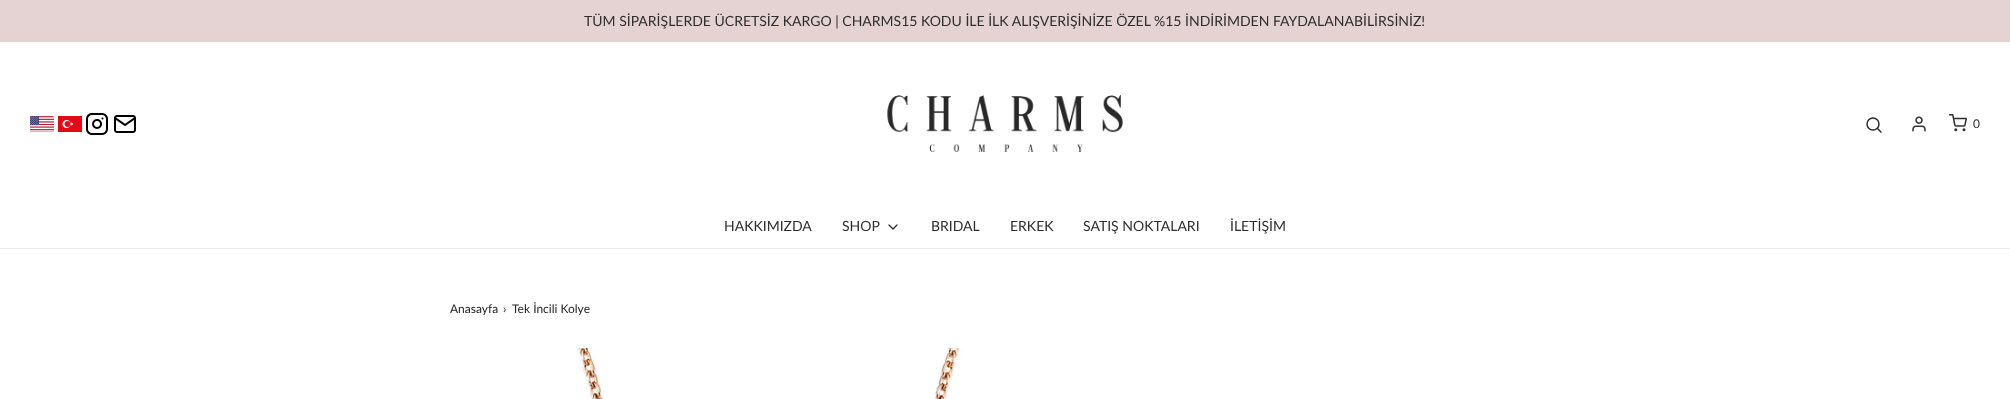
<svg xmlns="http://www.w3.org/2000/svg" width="2010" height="399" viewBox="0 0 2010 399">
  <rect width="100%" height="100%" fill="rgb(255,255,255)"/>
  <rect x="0" y="0" width="2010" height="42" fill="rgb(229,211,211)"/>
  <text x="584" y="26" font-family="Lato" font-size="14" fill="rgb(46,46,46)">TÜM SİPARİŞLERDE ÜCRETSİZ KARGO | CHARMS15 KODU İLE İLK ALIŞVERİŞİNİZE ÖZEL %15 İNDİRİMDEN FAYDALANABİLİRSİNİZ!</text>
  <rect x="0" y="248" width="2010" height="1" fill="rgb(234,234,234)"/>
  <image x="30" y="116" width="24" height="16" href="pic1.png"/>
  <image x="58" y="116" width="24" height="16" href="pic2.png"/>
  <image x="86" y="113" width="22" height="22" href="pic3.png"/>
  <image x="114" y="115" width="22" height="18" href="pic4.png"/>
  <image x="887" y="95" width="236" height="57" href="pic5.png"/>
  <circle cx="1873" cy="124" r="6" fill="none" stroke="rgb(46,46,46)" stroke-width="1.5"/>
  <path d="M1881 132L1877.5 128.5" fill="none" stroke="rgb(46,46,46)" stroke-width="1.5" stroke-linecap="round" stroke-linejoin="round"/>
  <image x="1912" y="116" width="14" height="16" href="pic6.png"/>
  <image x="1949" y="114" width="18" height="18" href="pic7.png"/>
  <text x="1973" y="128" font-family="Lato" font-size="12" fill="rgb(46,46,46)">0</text>
  <g font-family="Lato" font-size="14" fill="rgb(46,46,46)">
    <text x="724" y="231">HAKKIMIZDA</text>
    <text x="842" y="231">SHOP</text>
  </g>
  <path d="M889 225L893 229L897 225" fill="none" stroke="rgb(46,46,46)" stroke-width="1.3" stroke-linecap="round" stroke-linejoin="round"/>
  <g font-family="Lato" font-size="14" fill="rgb(46,46,46)">
    <text x="931" y="231">BRIDAL</text>
    <text x="1010" y="231">ERKEK</text>
    <text x="1083" y="231">SATIŞ NOKTALARI</text>
    <text x="1230" y="231">İLETİŞİM</text>
  </g>
  <g font-family="Lato" font-size="12" fill="rgb(36,36,36)">
    <text x="450" y="313">Anasayfa</text>
    <text x="503" y="313">›</text>
    <text x="512" y="313">Tek İncili Kolye</text>
  </g>
  <image x="577" y="348" width="386" height="51" href="pic8.png"/>
</svg>
